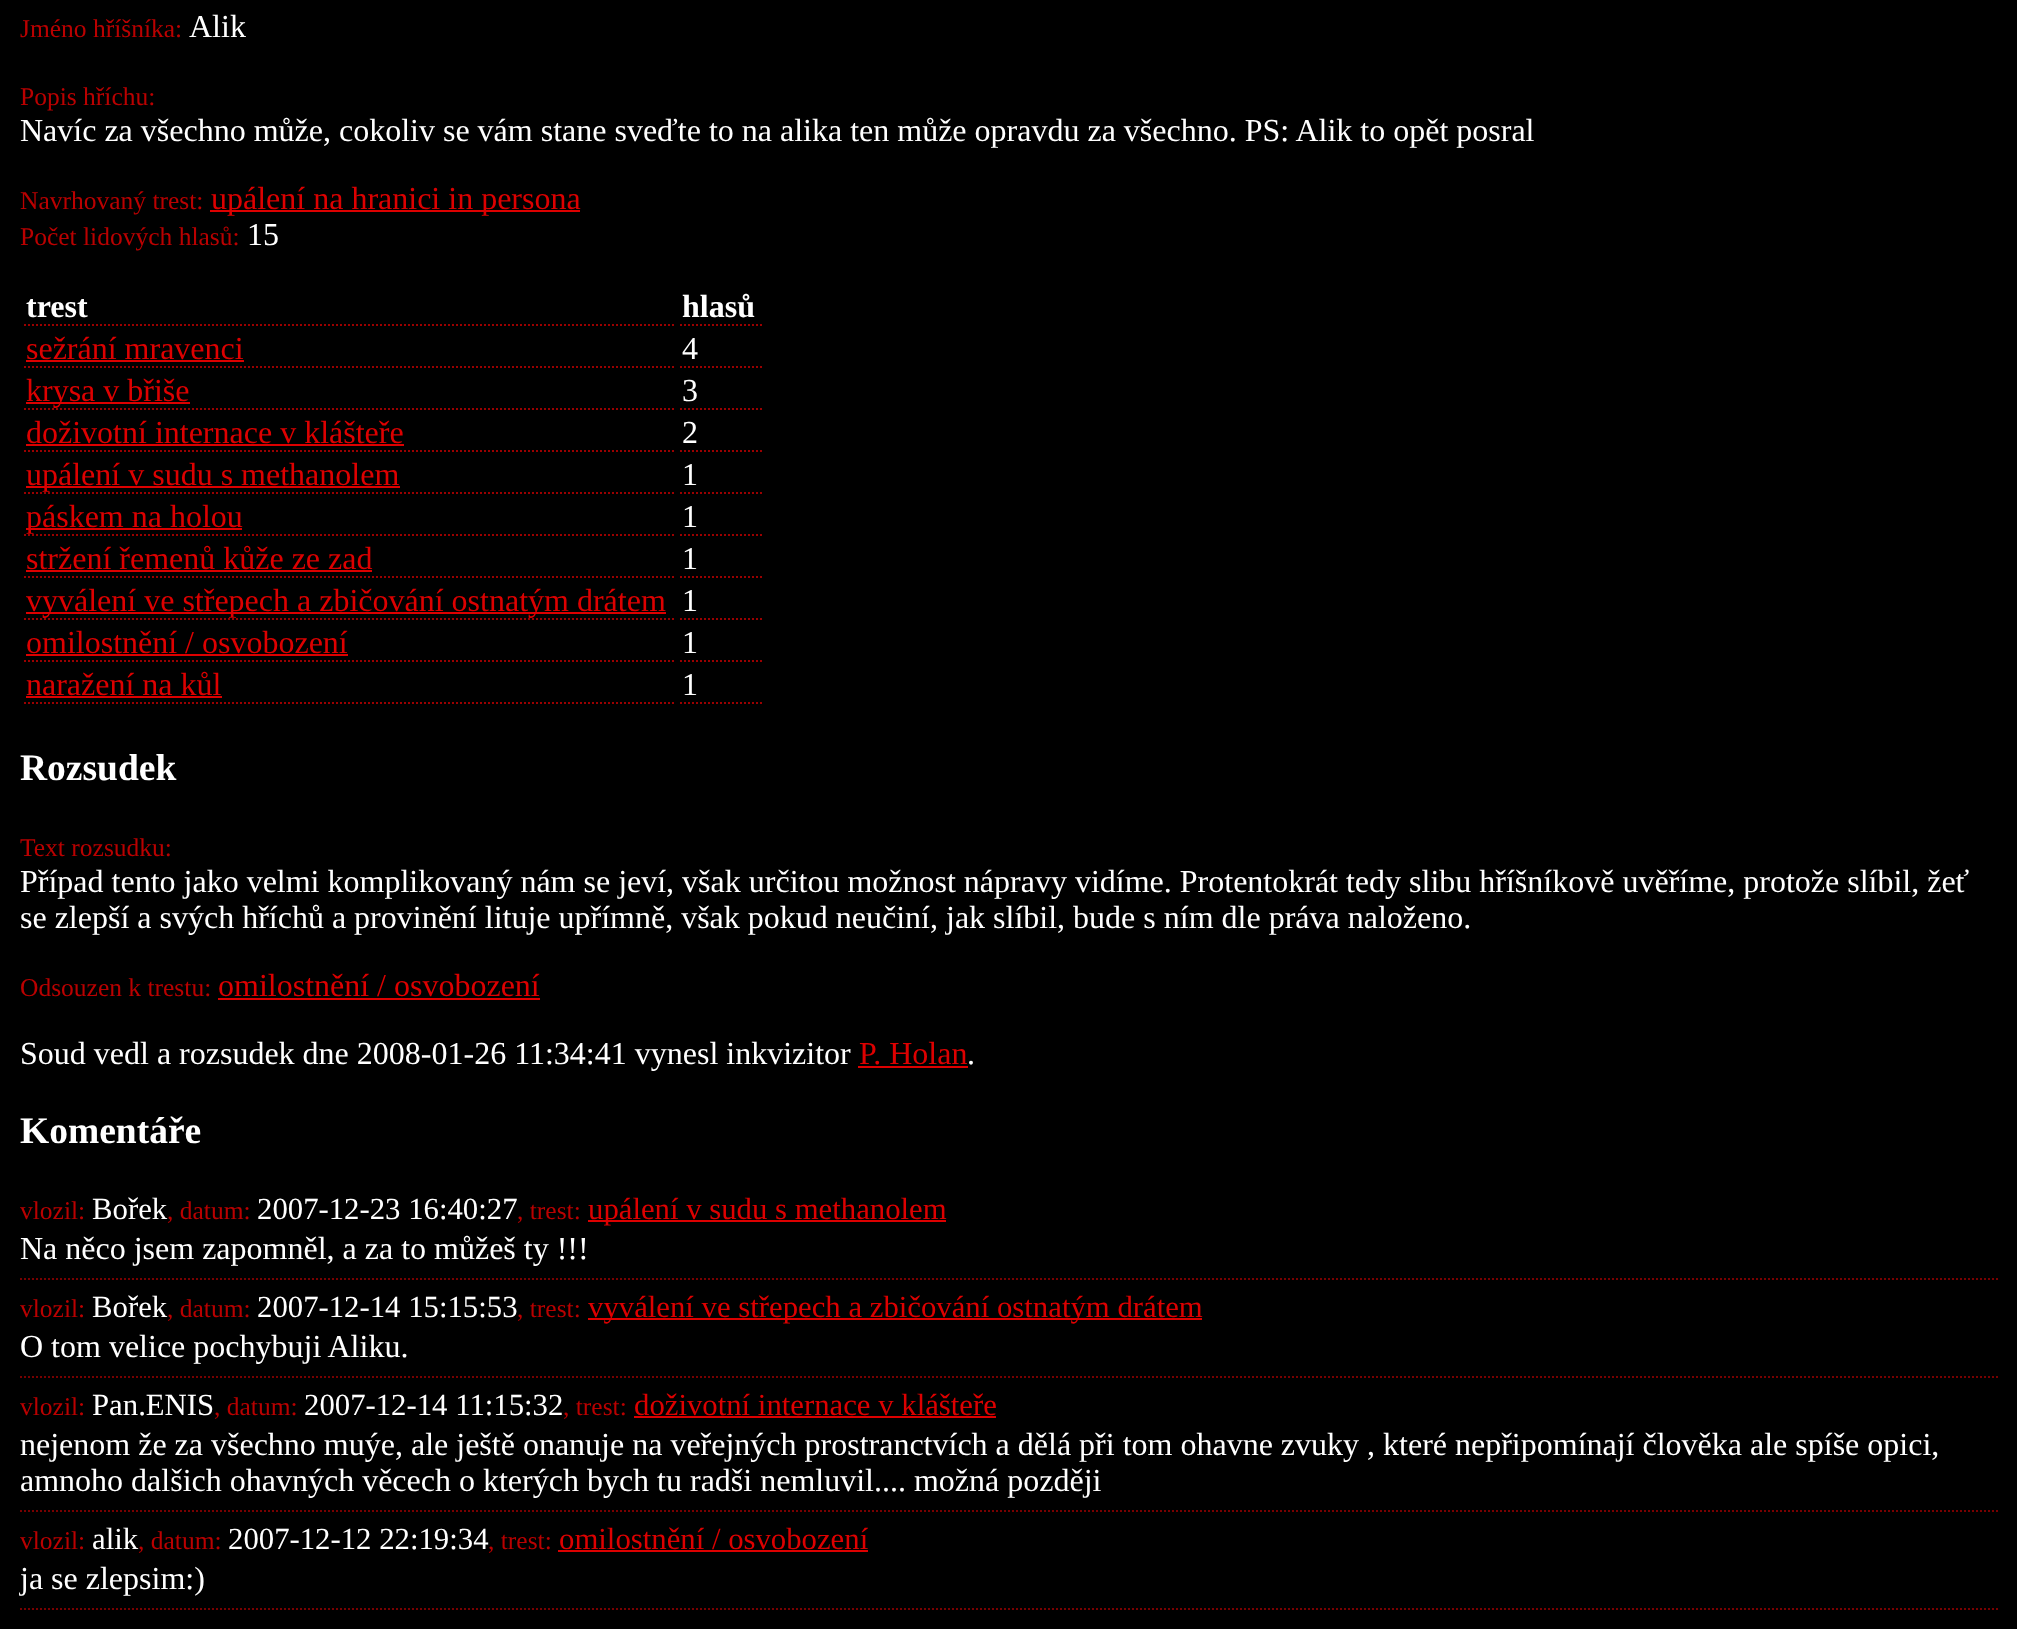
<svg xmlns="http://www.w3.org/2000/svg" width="2017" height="1629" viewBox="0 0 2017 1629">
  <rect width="100%" height="100%" fill="rgb(0,0,0)"/>
  <text x="20" y="37" font-family="Liberation Serif" font-size="25.5" fill="rgb(186,0,0)">Jméno hříšníka:</text>
  <text x="189" y="37" font-family="Liberation Serif" font-size="32" fill="rgb(255,255,255)">Alik</text>
  <text x="20" y="105" font-family="Liberation Serif" font-size="25.5" fill="rgb(186,0,0)">Popis hříchu:</text>
  <text x="20" y="141" font-family="Liberation Serif" font-size="32" fill="rgb(255,255,255)">Navíc za všechno může, cokoliv se vám stane sveďte to na alika ten může opravdu za všechno. PS: Alik to opět posral</text>
  <text x="20" y="209" font-family="Liberation Serif" font-size="25.5" fill="rgb(186,0,0)">Navrhovaný trest:</text>
  <rect x="210" y="210" width="370" height="2" fill="rgb(221,0,0)"/>
  <text x="211" y="209" font-family="Liberation Serif" font-size="32" fill="rgb(221,0,0)">upálení na hranici in persona</text>
  <text x="20" y="245" font-family="Liberation Serif" font-size="25.5" fill="rgb(186,0,0)">Počet lidových hlasů:</text>
  <text x="247" y="245" font-family="Liberation Serif" font-size="32" fill="rgb(255,255,255)">15</text>
  <path d="M24 325H676" fill="none" stroke="rgb(154,0,0)" stroke-width="2" stroke-dasharray="2 2"/>
  <text x="26" y="317" font-family="Liberation Serif" font-size="32" font-weight="bold" fill="rgb(255,255,255)">trest</text>
  <path d="M680 325H764" fill="none" stroke="rgb(154,0,0)" stroke-width="2" stroke-dasharray="2 2"/>
  <text x="682" y="317" font-family="Liberation Serif" font-size="32" font-weight="bold" fill="rgb(255,255,255)">hlasů</text>
  <path d="M24 367H676" fill="none" stroke="rgb(154,0,0)" stroke-width="2" stroke-dasharray="2 2"/>
  <text x="26" y="359" font-family="Liberation Serif" font-size="32" fill="rgb(221,0,0)">sežrání mravenci</text>
  <rect x="26" y="360" width="218" height="2" fill="rgb(221,0,0)"/>
  <path d="M680 367H764" fill="none" stroke="rgb(154,0,0)" stroke-width="2" stroke-dasharray="2 2"/>
  <text x="682" y="359" font-family="Liberation Serif" font-size="32" fill="rgb(255,255,255)">4</text>
  <path d="M24 409H676" fill="none" stroke="rgb(154,0,0)" stroke-width="2" stroke-dasharray="2 2"/>
  <rect x="26" y="402" width="164" height="2" fill="rgb(221,0,0)"/>
  <text x="26" y="401" font-family="Liberation Serif" font-size="32" fill="rgb(221,0,0)">krysa v břiše</text>
  <path d="M680 409H764" fill="none" stroke="rgb(154,0,0)" stroke-width="2" stroke-dasharray="2 2"/>
  <text x="682" y="401" font-family="Liberation Serif" font-size="32" fill="rgb(255,255,255)">3</text>
  <path d="M24 451H676" fill="none" stroke="rgb(154,0,0)" stroke-width="2" stroke-dasharray="2 2"/>
  <text x="26" y="443" font-family="Liberation Serif" font-size="32" fill="rgb(221,0,0)">doživotní internace v klášteře</text>
  <rect x="26" y="444" width="378" height="2" fill="rgb(221,0,0)"/>
  <path d="M680 451H764" fill="none" stroke="rgb(154,0,0)" stroke-width="2" stroke-dasharray="2 2"/>
  <text x="682" y="443" font-family="Liberation Serif" font-size="32" fill="rgb(255,255,255)">2</text>
  <path d="M24 493H676" fill="none" stroke="rgb(154,0,0)" stroke-width="2" stroke-dasharray="2 2"/>
  <rect x="26" y="486" width="374" height="2" fill="rgb(221,0,0)"/>
  <text x="26" y="485" font-family="Liberation Serif" font-size="32" fill="rgb(221,0,0)">upálení v sudu s methanolem</text>
  <path d="M680 493H764" fill="none" stroke="rgb(154,0,0)" stroke-width="2" stroke-dasharray="2 2"/>
  <text x="682" y="485" font-family="Liberation Serif" font-size="32" fill="rgb(255,255,255)">1</text>
  <path d="M24 535H676" fill="none" stroke="rgb(154,0,0)" stroke-width="2" stroke-dasharray="2 2"/>
  <rect x="26" y="528" width="216" height="2" fill="rgb(221,0,0)"/>
  <text x="26" y="527" font-family="Liberation Serif" font-size="32" fill="rgb(221,0,0)">páskem na holou</text>
  <path d="M680 535H764" fill="none" stroke="rgb(154,0,0)" stroke-width="2" stroke-dasharray="2 2"/>
  <text x="682" y="527" font-family="Liberation Serif" font-size="32" fill="rgb(255,255,255)">1</text>
  <path d="M24 577H676" fill="none" stroke="rgb(154,0,0)" stroke-width="2" stroke-dasharray="2 2"/>
  <text x="26" y="569" font-family="Liberation Serif" font-size="32" fill="rgb(221,0,0)">stržení řemenů kůže ze zad</text>
  <rect x="26" y="570" width="346" height="2" fill="rgb(221,0,0)"/>
  <path d="M680 577H764" fill="none" stroke="rgb(154,0,0)" stroke-width="2" stroke-dasharray="2 2"/>
  <text x="682" y="569" font-family="Liberation Serif" font-size="32" fill="rgb(255,255,255)">1</text>
  <path d="M24 619H676" fill="none" stroke="rgb(154,0,0)" stroke-width="2" stroke-dasharray="2 2"/>
  <rect x="26" y="612" width="640" height="2" fill="rgb(221,0,0)"/>
  <text x="26" y="611" font-family="Liberation Serif" font-size="32" fill="rgb(221,0,0)">vyválení ve střepech a zbičování ostnatým drátem</text>
  <path d="M680 619H764" fill="none" stroke="rgb(154,0,0)" stroke-width="2" stroke-dasharray="2 2"/>
  <text x="682" y="611" font-family="Liberation Serif" font-size="32" fill="rgb(255,255,255)">1</text>
  <path d="M24 661H676" fill="none" stroke="rgb(154,0,0)" stroke-width="2" stroke-dasharray="2 2"/>
  <text x="26" y="653" font-family="Liberation Serif" font-size="32" fill="rgb(221,0,0)">omilostnění / osvobození</text>
  <rect x="26" y="654" width="322" height="2" fill="rgb(221,0,0)"/>
  <path d="M680 661H764" fill="none" stroke="rgb(154,0,0)" stroke-width="2" stroke-dasharray="2 2"/>
  <text x="682" y="653" font-family="Liberation Serif" font-size="32" fill="rgb(255,255,255)">1</text>
  <path d="M24 703H676" fill="none" stroke="rgb(154,0,0)" stroke-width="2" stroke-dasharray="2 2"/>
  <text x="26" y="695" font-family="Liberation Serif" font-size="32" fill="rgb(221,0,0)">naražení na kůl</text>
  <rect x="26" y="696" width="196" height="2" fill="rgb(221,0,0)"/>
  <path d="M680 703H764" fill="none" stroke="rgb(154,0,0)" stroke-width="2" stroke-dasharray="2 2"/>
  <text x="682" y="695" font-family="Liberation Serif" font-size="32" fill="rgb(255,255,255)">1</text>
  <text x="20" y="780" font-family="Liberation Serif" font-size="37.5" font-weight="bold" fill="rgb(255,255,255)">Rozsudek</text>
  <text x="20" y="856" font-family="Liberation Serif" font-size="25.5" fill="rgb(186,0,0)">Text rozsudku:</text>
  <g font-family="Liberation Serif" font-size="32" fill="rgb(255,255,255)">
    <text>
      <tspan x="20" y="892">Případ tento jako velmi komplikovaný nám se jeví, však určitou možnost nápravy vidíme. Protentokrát tedy slibu hříšníkově uvěříme, protože slíbil, žeť</tspan>
      <tspan x="20" y="928">se zlepší a svých hříchů a provinění lituje upřímně, však pokud neučiní, jak slíbil, bude s ním dle práva naloženo.</tspan>
    </text>
  </g>
  <text x="20" y="996" font-family="Liberation Serif" font-size="25.5" fill="rgb(186,0,0)">Odsouzen k trestu:</text>
  <text x="218" y="996" font-family="Liberation Serif" font-size="32" fill="rgb(221,0,0)">omilostnění / osvobození</text>
  <rect x="218" y="998" width="322" height="2" fill="rgb(221,0,0)"/>
  <text x="20" y="1064" font-family="Liberation Serif" font-size="32" fill="rgb(255,255,255)">Soud vedl a rozsudek dne 2008-01-26 11:34:41 vynesl inkvizitor</text>
  <text x="859" y="1064" font-family="Liberation Serif" font-size="32" fill="rgb(221,0,0)">P. Holan</text>
  <rect x="858" y="1066" width="110" height="2" fill="rgb(221,0,0)"/>
  <text x="967" y="1064" font-family="Liberation Serif" font-size="32" fill="rgb(255,255,255)">.</text>
  <text x="20" y="1143" font-family="Liberation Serif" font-size="37.5" font-weight="bold" fill="rgb(255,255,255)">Komentáře</text>
  <path d="M20 1279H1998" fill="none" stroke="rgb(120,0,0)" stroke-width="2" stroke-dasharray="2 2"/>
  <text x="20" y="1219" font-family="Liberation Serif" font-size="25.5" fill="rgb(186,0,0)">vlozil:</text>
  <text x="92" y="1219" font-family="Liberation Serif" font-size="30.75" fill="rgb(255,255,255)">Bořek</text>
  <text x="167" y="1219" font-family="Liberation Serif" font-size="25.5" fill="rgb(186,0,0)">, datum:</text>
  <text x="257" y="1219" font-family="Liberation Serif" font-size="30.75" fill="rgb(255,255,255)">2007-12-23 16:40:27</text>
  <text x="517" y="1219" font-family="Liberation Serif" font-size="25.5" fill="rgb(186,0,0)">, trest:</text>
  <rect x="588" y="1220" width="358" height="2" fill="rgb(221,0,0)"/>
  <text x="588" y="1219" font-family="Liberation Serif" font-size="30.75" fill="rgb(221,0,0)">upálení v sudu s methanolem</text>
  <text x="20" y="1259" font-family="Liberation Serif" font-size="32" fill="rgb(255,255,255)">Na něco jsem zapomněl, a za to můžeš ty !!!</text>
  <path d="M20 1377H1998" fill="none" stroke="rgb(120,0,0)" stroke-width="2" stroke-dasharray="2 2"/>
  <text x="20" y="1317" font-family="Liberation Serif" font-size="25.5" fill="rgb(186,0,0)">vlozil:</text>
  <text x="92" y="1317" font-family="Liberation Serif" font-size="30.75" fill="rgb(255,255,255)">Bořek</text>
  <text x="167" y="1317" font-family="Liberation Serif" font-size="25.5" fill="rgb(186,0,0)">, datum:</text>
  <text x="257" y="1317" font-family="Liberation Serif" font-size="30.75" fill="rgb(255,255,255)">2007-12-14 15:15:53</text>
  <text x="517" y="1317" font-family="Liberation Serif" font-size="25.5" fill="rgb(186,0,0)">, trest:</text>
  <rect x="588" y="1318" width="614" height="2" fill="rgb(221,0,0)"/>
  <text x="588" y="1317" font-family="Liberation Serif" font-size="30.75" fill="rgb(221,0,0)">vyválení ve střepech a zbičování ostnatým drátem</text>
  <text x="20" y="1357" font-family="Liberation Serif" font-size="32" fill="rgb(255,255,255)">O tom velice pochybuji Aliku.</text>
  <path d="M20 1511H1998" fill="none" stroke="rgb(120,0,0)" stroke-width="2" stroke-dasharray="2 2"/>
  <text x="20" y="1415" font-family="Liberation Serif" font-size="25.5" fill="rgb(186,0,0)">vlozil:</text>
  <text x="92" y="1415" font-family="Liberation Serif" font-size="30.75" fill="rgb(255,255,255)">Pan.ENIS</text>
  <text x="214" y="1415" font-family="Liberation Serif" font-size="25.5" fill="rgb(186,0,0)">, datum:</text>
  <text x="304" y="1415" font-family="Liberation Serif" font-size="30.75" fill="rgb(255,255,255)">2007-12-14 11:15:32</text>
  <text x="563" y="1415" font-family="Liberation Serif" font-size="25.5" fill="rgb(186,0,0)">, trest:</text>
  <text x="634" y="1415" font-family="Liberation Serif" font-size="30.75" fill="rgb(221,0,0)">doživotní internace v klášteře</text>
  <rect x="634" y="1416" width="362" height="2" fill="rgb(221,0,0)"/>
  <g font-family="Liberation Serif" font-size="32" fill="rgb(255,255,255)">
    <text>
      <tspan x="20" y="1455">nejenom že za všechno muýe, ale ještě onanuje na veřejných prostranctvích a dělá při tom ohavne zvuky , které nepřipomínají člověka ale spíše opici,</tspan>
      <tspan x="20" y="1491">amnoho dalšich ohavných věcech o kterých bych tu radši nemluvil.... možná později</tspan>
    </text>
  </g>
  <path d="M20 1609H1998" fill="none" stroke="rgb(120,0,0)" stroke-width="2" stroke-dasharray="2 2"/>
  <text x="20" y="1549" font-family="Liberation Serif" font-size="25.5" fill="rgb(186,0,0)">vlozil:</text>
  <text x="92" y="1549" font-family="Liberation Serif" font-size="30.75" fill="rgb(255,255,255)">alik</text>
  <text x="138" y="1549" font-family="Liberation Serif" font-size="25.5" fill="rgb(186,0,0)">, datum:</text>
  <text x="228" y="1549" font-family="Liberation Serif" font-size="30.75" fill="rgb(255,255,255)">2007-12-12 22:19:34</text>
  <text x="488" y="1549" font-family="Liberation Serif" font-size="25.5" fill="rgb(186,0,0)">, trest:</text>
  <text x="559" y="1549" font-family="Liberation Serif" font-size="30.75" fill="rgb(221,0,0)">omilostnění / osvobození</text>
  <rect x="558" y="1550" width="310" height="2" fill="rgb(221,0,0)"/>
  <text x="20" y="1589" font-family="Liberation Serif" font-size="32" fill="rgb(255,255,255)">ja se zlepsim:)</text>
</svg>
